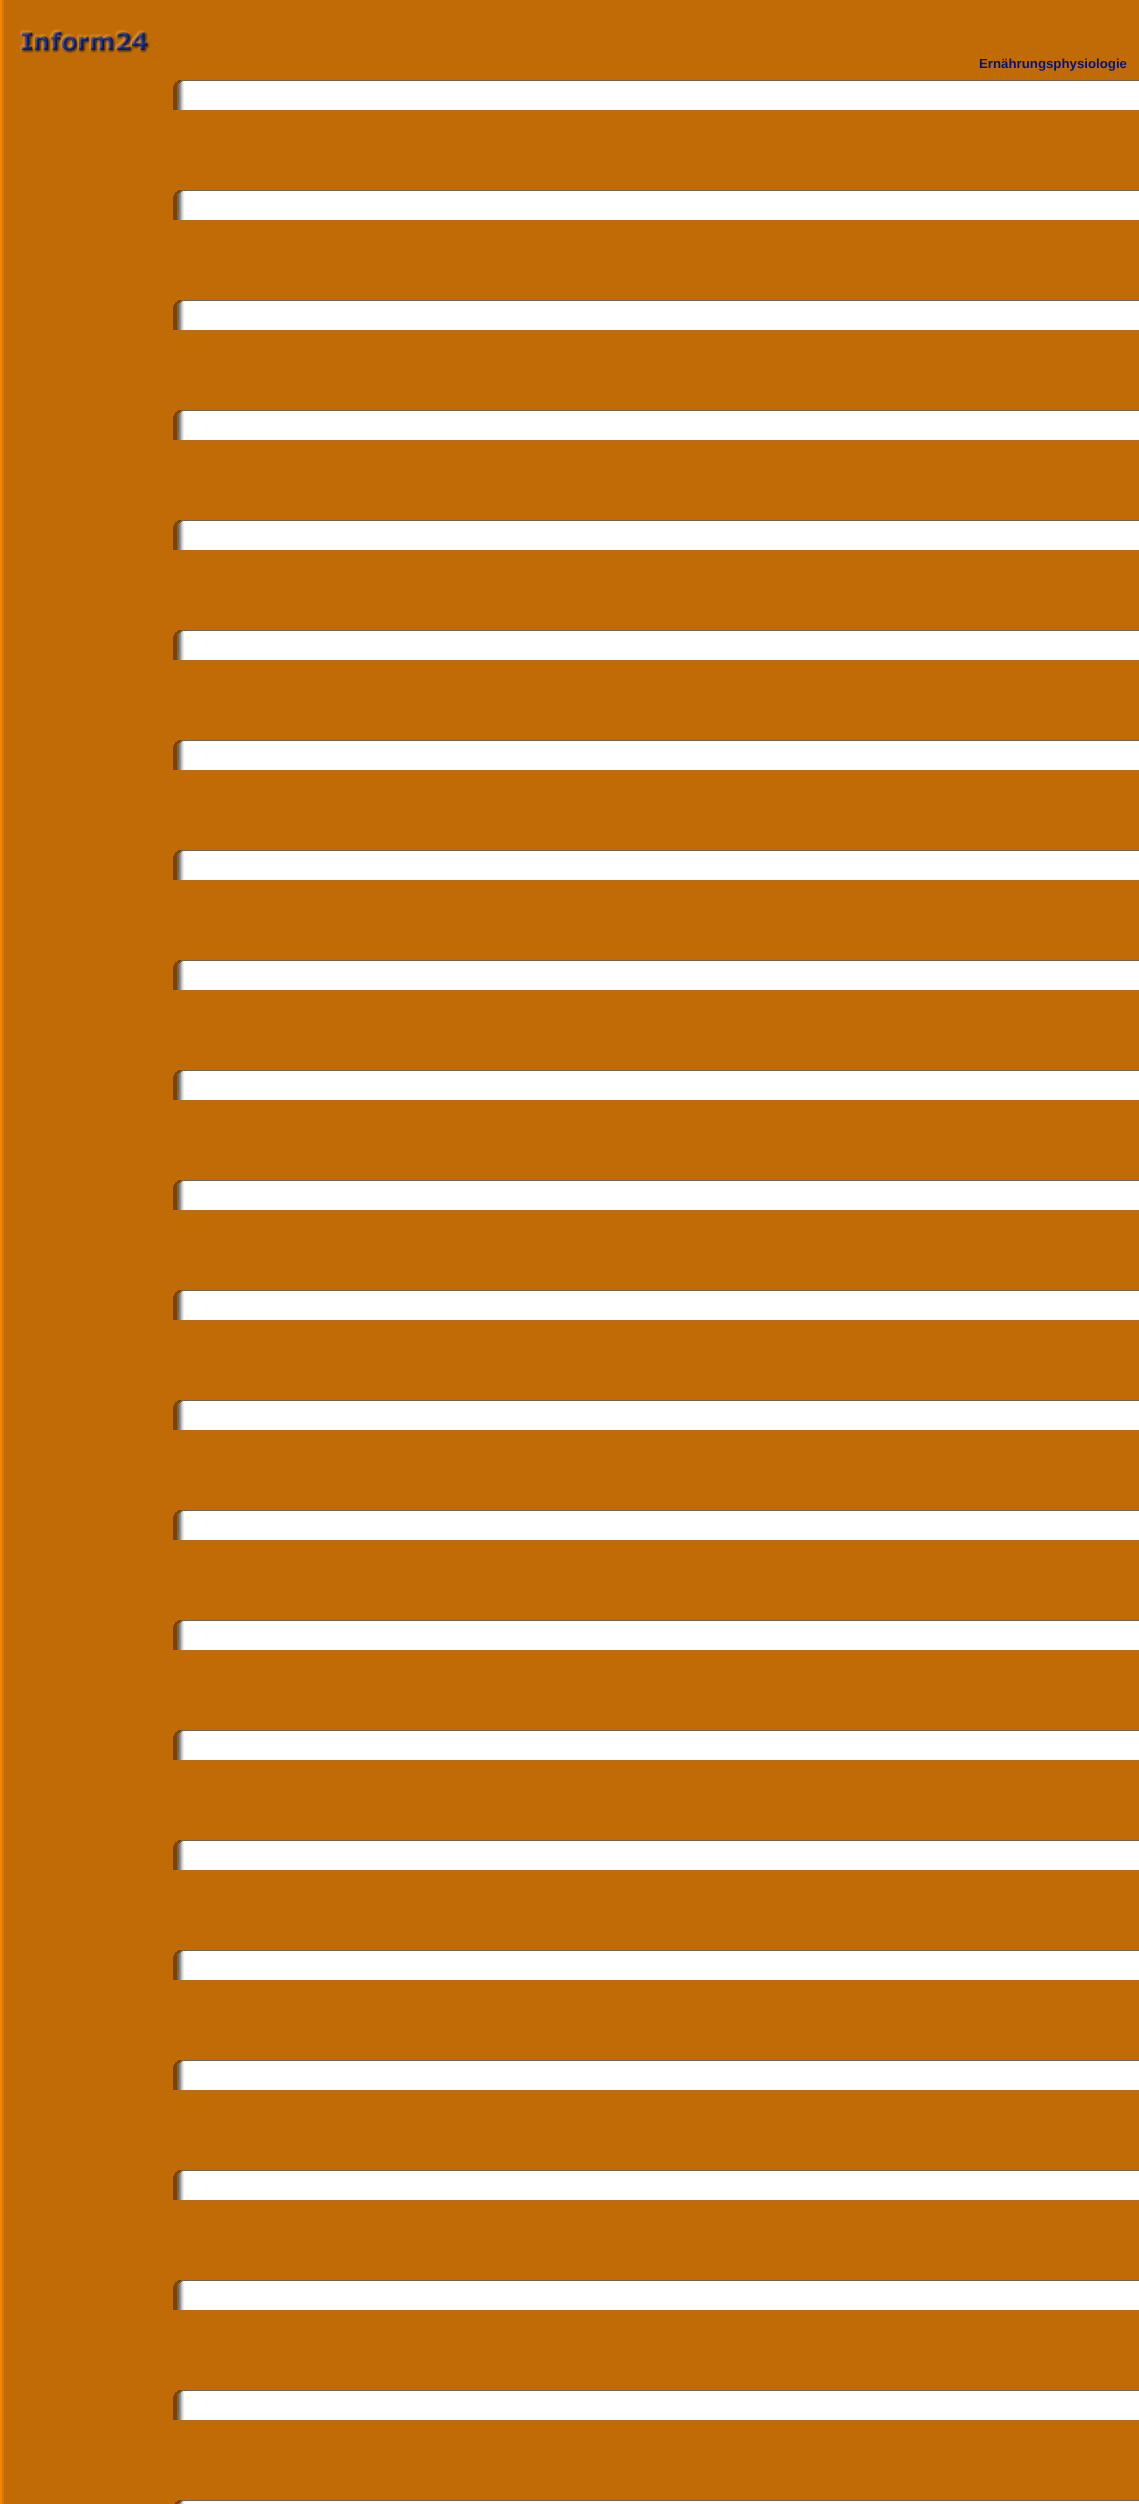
<svg xmlns="http://www.w3.org/2000/svg" width="1139" height="2504" viewBox="0 0 1139 2504">
  <rect width="100%" height="100%" fill="rgb(255,255,255)"/>
  <image x="0" y="0" width="1139" height="2504" href="pic1.png"/>
  <image x="20" y="29" width="130" height="25" href="pic2.png"/>
  <text x="979" y="68" font-family="Liberation Sans" font-size="13.25" font-weight="bold" fill="rgb(3,20,126)">Ernährungsphysiologie</text>
</svg>
